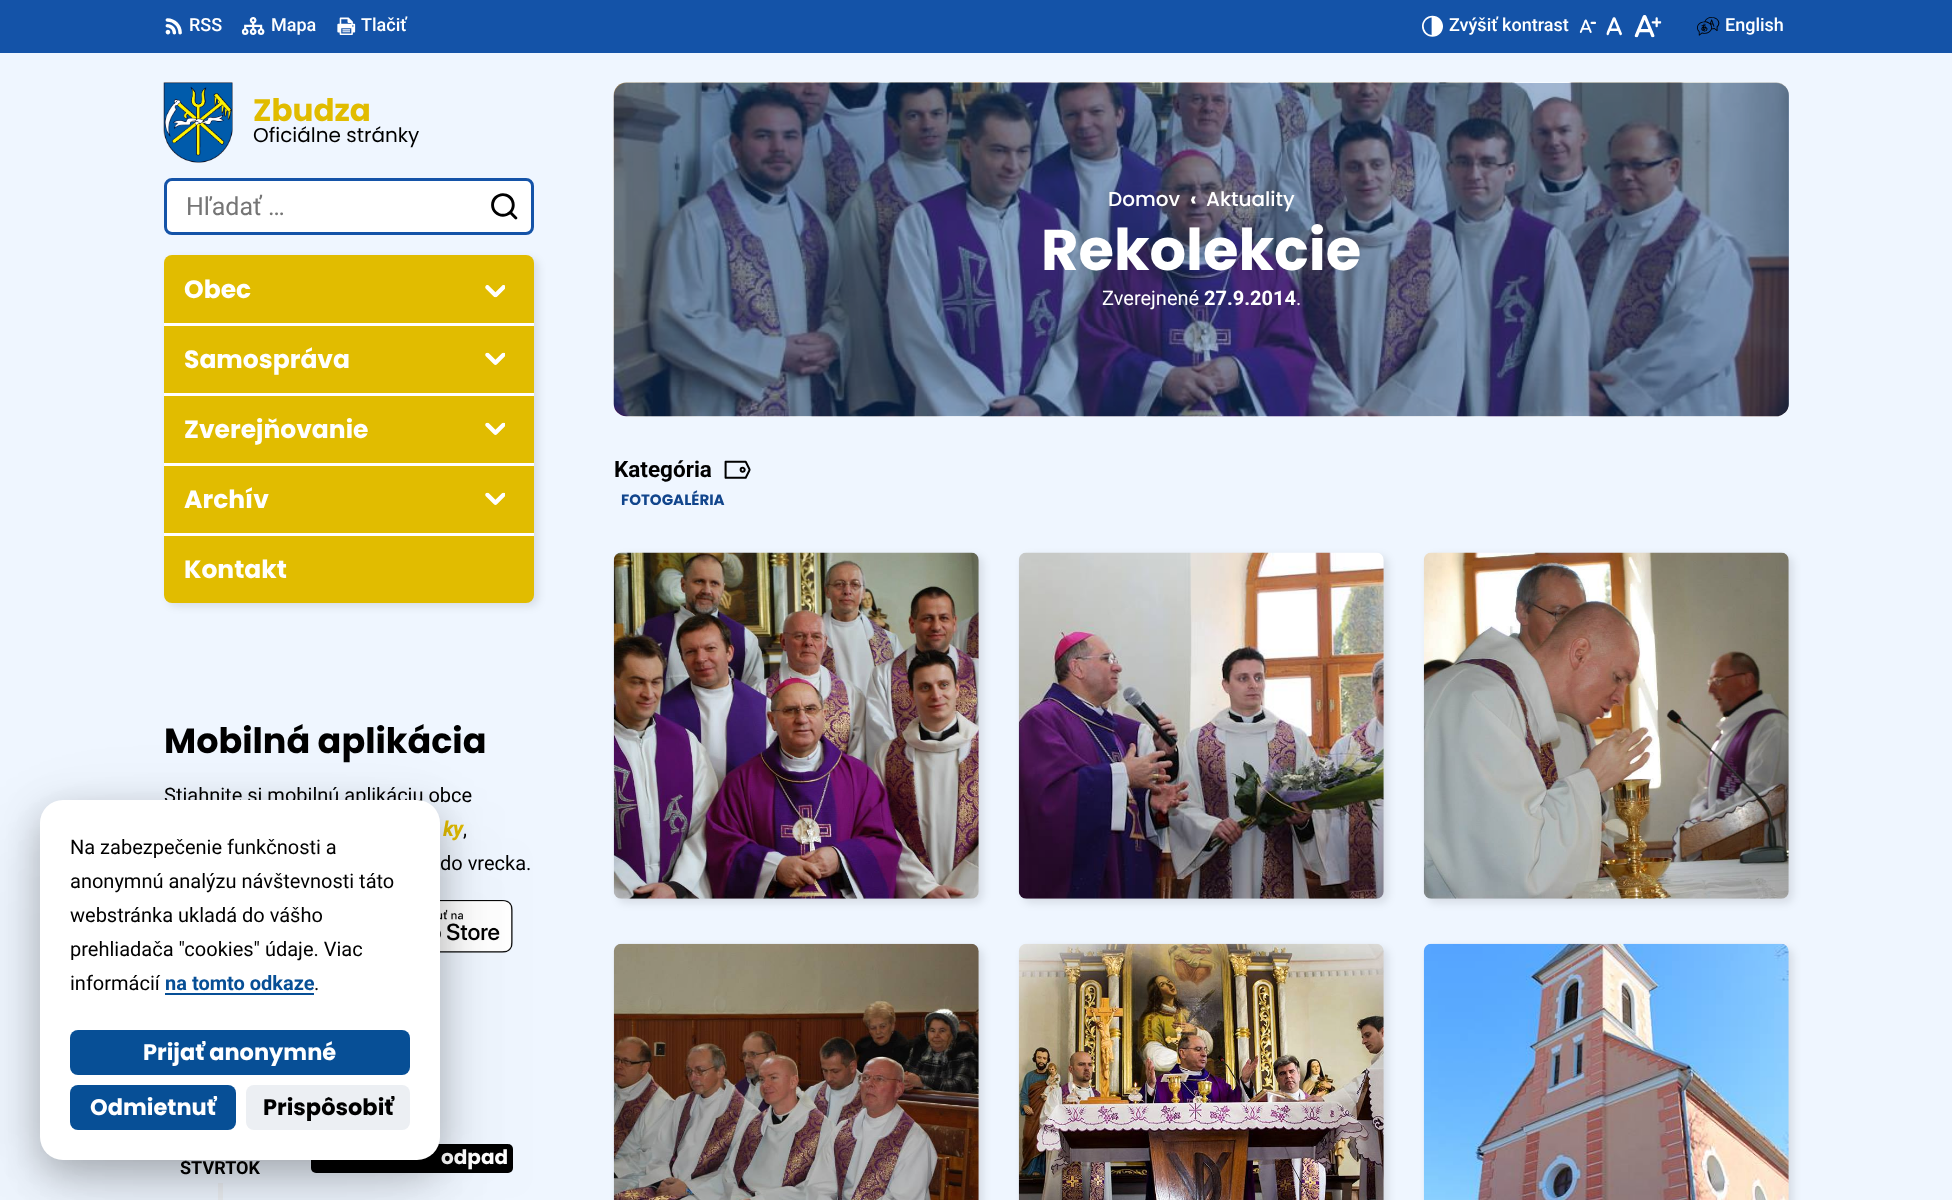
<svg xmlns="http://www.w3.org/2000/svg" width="1952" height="1200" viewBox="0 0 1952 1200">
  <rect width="100%" height="100%" fill="rgb(239,246,255)"/>
  <rect x="0" y="0" width="1952" height="53" fill="rgb(20,83,168)"/>
  <image x="165" y="18" width="17" height="17" href="pic1.png"/>
  <text x="189" y="31" font-family="Roboto" font-size="18" font-weight="500" fill="rgb(255,255,255)">RSS</text>
  <image x="241" y="17" width="24" height="18" href="pic2.png"/>
  <text x="271" y="31" font-family="Roboto" font-size="18" font-weight="500" fill="rgb(255,255,255)">Mapa</text>
  <image x="337" y="17" width="19" height="18" href="pic3.png"/>
  <text x="361" y="31" font-family="Roboto" font-size="18" font-weight="500" fill="rgb(255,255,255)">Tlačiť</text>
  <image x="1422" y="15" width="21" height="22" href="pic4.png"/>
  <text x="1449" y="31" font-family="Roboto" font-size="18" font-weight="500" fill="rgb(255,255,255)">Zvýšiť kontrast</text>
  <image x="1579" y="19" width="17" height="14" href="pic5.png"/>
  <image x="1606" y="17" width="16" height="19" href="pic6.png"/>
  <image x="1634" y="15" width="28" height="23" href="pic7.png"/>
  <image x="1697" y="17" width="23" height="19" href="pic8.png"/>
  <text x="1725" y="31" font-family="Roboto" font-size="18" font-weight="500" fill="rgb(255,255,255)">English</text>
  <image x="163" y="82" width="70" height="81" href="pic9.png"/>
  <text x="253" y="121" font-family="Poppins" font-size="31" font-weight="bold" fill="rgb(225,188,0)">Zbudza</text>
  <text x="253" y="142" font-family="Poppins" font-size="20" fill="rgb(0,0,0)">Oficiálne stránky</text>
  <rect x="165.5" y="179.5" width="367" height="54" rx="6.5" fill="rgb(255,255,255)" stroke="rgb(20,83,168)" stroke-width="3"/>
  <text x="186" y="215" font-family="Roboto" font-size="25" fill="rgb(117,117,117)">Hľadať …</text>
  <image x="491" y="193" width="27" height="27" href="pic10.png"/>
  <rect x="168" y="259" width="370" height="347" rx="8" fill="rgba(0,0,0,0.1)" filter="blur(4px)"/>
  <rect x="164" y="255" width="370" height="348" rx="8" fill="rgb(225,188,0)"/>
  <text x="184" y="298" font-family="Poppins" font-size="25" font-weight="bold" fill="rgb(255,255,255)">Obec</text>
  <image x="485" y="285" width="20" height="13" href="pic11.png"/>
  <rect x="164" y="323" width="370" height="3" fill="rgb(255,255,255)"/>
  <text x="184" y="368" font-family="Poppins" font-size="25" font-weight="bold" fill="rgb(255,255,255)">Samospráva</text>
  <image x="485" y="352" width="20" height="13" href="pic12.png"/>
  <rect x="164" y="393" width="370" height="3" fill="rgb(255,255,255)"/>
  <text x="184" y="438" font-family="Poppins" font-size="25" font-weight="bold" fill="rgb(255,255,255)">Zverejňovanie</text>
  <image x="485" y="422" width="20" height="13" href="pic12.png"/>
  <rect x="164" y="463" width="370" height="3" fill="rgb(255,255,255)"/>
  <text x="184" y="508" font-family="Poppins" font-size="25" font-weight="bold" fill="rgb(255,255,255)">Archív</text>
  <image x="485" y="492" width="20" height="13" href="pic12.png"/>
  <rect x="164" y="533" width="370" height="3" fill="rgb(255,255,255)"/>
  <text x="184" y="578" font-family="Poppins" font-size="25" font-weight="bold" fill="rgb(255,255,255)">Kontakt</text>
  <image x="613" y="82" width="1176" height="335" href="pic13.png"/>
  <rect x="614" y="83" width="1175" height="333" rx="13" fill="rgba(17,69,140,0.4)"/>
  <text x="1108" y="206" font-family="Poppins" font-size="20" font-weight="500" fill="rgb(255,255,255)">Domov</text>
  <text x="1190" y="206" font-family="Poppins" font-size="20" font-weight="bold" fill="rgb(255,255,255)">‹</text>
  <text x="1206" y="206" font-family="Poppins" font-size="20" font-weight="500" fill="rgb(255,255,255)">Aktuality</text>
  <text x="1041" y="270" font-family="Poppins" font-size="57.5" font-weight="bold" fill="rgb(255,255,255)">Rekolekcie</text>
  <text x="1102" y="305" font-family="Roboto" font-size="20" fill="rgb(255,255,255)">Zverejnené</text>
  <text x="1204" y="305" font-family="Roboto" font-size="20" font-weight="bold" fill="rgb(255,255,255)">27.9.2014</text>
  <text x="1296" y="305" font-family="Roboto" font-size="20" fill="rgb(255,255,255)">.</text>
  <text x="614" y="477" font-family="Roboto" font-size="22.5" font-weight="bold" fill="rgb(0,0,0)">Kategória</text>
  <image x="724" y="460" width="27" height="19" href="pic14.png"/>
  <text x="621" y="505" font-family="Poppins" font-size="15" font-weight="bold" fill="rgb(17,69,140)">FOTOGALÉRIA</text>
  <rect x="618" y="556" width="365" height="347" rx="8" fill="rgba(0,0,0,0.1)" filter="blur(4px)"/>
  <image x="613" y="552" width="366" height="347" href="pic15.png"/>
  <rect x="1023" y="556" width="365" height="347" rx="8" fill="rgba(0,0,0,0.1)" filter="blur(4px)"/>
  <image x="1018" y="552" width="366" height="347" href="pic16.png"/>
  <rect x="1428" y="556" width="365" height="347" rx="8" fill="rgba(0,0,0,0.1)" filter="blur(4px)"/>
  <image x="1423" y="552" width="366" height="347" href="pic17.png"/>
  <rect x="618" y="948" width="365" height="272" rx="8" fill="rgba(0,0,0,0.1)" filter="blur(4px)"/>
  <image x="613" y="943" width="366" height="257" href="pic18.png"/>
  <rect x="1023" y="948" width="365" height="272" rx="8" fill="rgba(0,0,0,0.1)" filter="blur(4px)"/>
  <image x="1018" y="943" width="366" height="257" href="pic19.png"/>
  <rect x="1428" y="948" width="365" height="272" rx="8" fill="rgba(0,0,0,0.1)" filter="blur(4px)"/>
  <image x="1423" y="943" width="366" height="257" href="pic20.png"/>
  <text x="164" y="753" font-family="Poppins" font-size="35" font-weight="bold" fill="rgb(0,0,0)">Mobilná aplikácia</text>
  <text x="164" y="802" font-family="Roboto" font-size="20" fill="rgb(0,0,0)">Stiahnite si mobilnú aplikáciu obce</text>
  <text x="443" y="836" font-family="Roboto" font-size="20" font-weight="bold" font-style="italic" fill="rgb(225,188,0)">ky</text>
  <g font-family="Roboto" font-size="20" fill="rgb(0,0,0)">
    <text x="463" y="836">,</text>
    <text x="440" y="870">do vrecka.</text>
  </g>
  <image x="440" y="900" width="73" height="53" href="pic21.png"/>
  <text x="180" y="1174" font-family="Roboto" font-size="18" font-weight="bold" fill="rgb(0,0,0)">ŠTVRTOK</text>
  <rect x="311" y="1144" width="202" height="29" rx="5" fill="rgb(0,0,0)"/>
  <text x="441" y="1164" font-family="Poppins" font-size="20" font-weight="bold" fill="rgb(255,255,255)">odpad</text>
  <rect x="218" y="1183" width="5" height="17" fill="rgb(236,239,243)"/>
  <rect x="40" y="838" width="400" height="360" rx="23" fill="rgba(0,0,0,0.05)" filter="blur(56px)"/>
  <rect x="40" y="825" width="400" height="360" rx="23" fill="rgba(0,0,0,0.05)" filter="blur(37.5px)"/>
  <rect x="40" y="813" width="400" height="360" rx="23" fill="rgba(0,0,0,0.25)" filter="blur(19px)"/>
  <rect x="40" y="800" width="400" height="360" rx="23" fill="rgb(255,255,255)"/>
  <g font-family="Roboto" font-size="20" fill="rgb(0,0,0)">
    <text>
      <tspan x="70" y="854">Na zabezpečenie funkčnosti a</tspan>
      <tspan x="70" y="888">anonymnú analýzu návštevnosti táto</tspan>
      <tspan x="70" y="922">webstránka ukladá do vášho</tspan>
      <tspan x="70" y="956">prehliadača "cookies" údaje. Viac</tspan>
      <tspan x="70" y="990">informácií</tspan>
    </text>
  </g>
  <text x="165" y="990" font-family="Roboto" font-size="20" font-weight="bold" fill="rgb(7,79,150)">na tomto odkaze</text>
  <rect x="165" y="993" width="149" height="2" fill="rgb(7,79,150)"/>
  <text x="314" y="990" font-family="Roboto" font-size="20" fill="rgb(0,0,0)">.</text>
  <rect x="70" y="1030" width="340" height="45" rx="8" fill="rgb(7,79,150)"/>
  <text x="143" y="1060" font-family="Poppins" font-size="22.5" font-weight="bold" fill="rgb(255,255,255)">Prijať anonymné</text>
  <rect x="70" y="1085" width="166" height="45" rx="8" fill="rgb(7,79,150)"/>
  <text x="90" y="1115" font-family="Poppins" font-size="22.5" font-weight="bold" fill="rgb(255,255,255)">Odmietnuť</text>
  <rect x="246" y="1085" width="164" height="45" rx="8" fill="rgb(236,239,243)"/>
  <text x="263" y="1115" font-family="Poppins" font-size="22.5" font-weight="bold" fill="rgb(0,0,0)">Prispôsobiť</text>
</svg>
